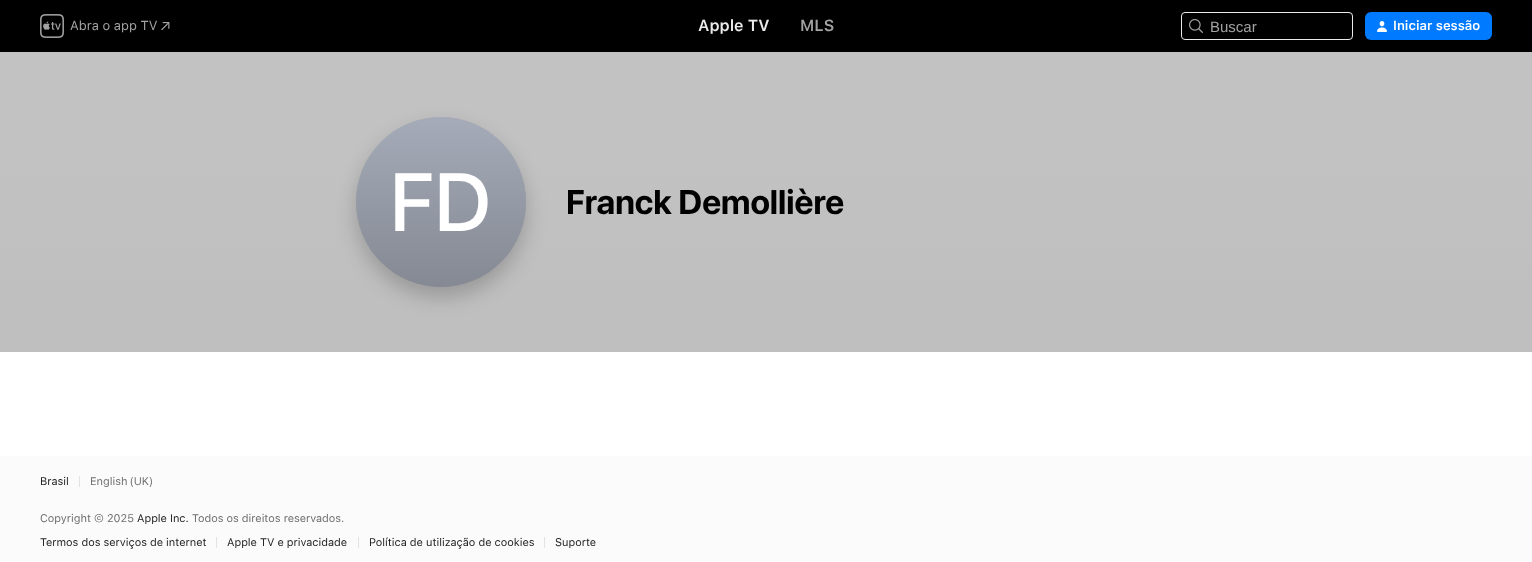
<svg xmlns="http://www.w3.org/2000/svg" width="1532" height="562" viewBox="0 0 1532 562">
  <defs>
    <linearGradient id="g1" gradientUnits="userSpaceOnUse" x1="766" y1="162" x2="766" y2="352"><stop offset="0" stop-color="rgb(194,194,194)"/><stop offset="0.7" stop-color="rgb(191,191,191)"/></linearGradient>
    <linearGradient id="g2" gradientUnits="userSpaceOnUse" x1="441" y1="117" x2="441" y2="287"><stop offset="0" stop-color="rgb(165,171,184)"/><stop offset="1" stop-color="rgb(132,137,147)"/></linearGradient>
  </defs>
  <rect width="100%" height="100%" fill="rgb(255,255,255)"/>
  <rect x="0" y="0" width="1532" height="52" fill="rgb(0,0,0)"/>
  <image x="40" y="14" width="24" height="24" href="pic1.png"/>
  <text x="70" y="30" font-family="SF" font-size="13" fill="rgb(163,163,163)">Abra o app TV</text>
  <image x="161" y="22" width="9" height="8" href="pic2.png"/>
  <text x="698" y="31" font-family="SF" font-size="16" font-weight="600" fill="rgb(235,235,235)">Apple TV</text>
  <text x="800" y="31" font-family="SF" font-size="16" font-weight="600" fill="rgb(163,163,163)">MLS</text>
  <rect x="1181.5" y="12.5" width="171" height="27" rx="3.5" fill="none" stroke="rgb(235,235,235)"/>
  <image x="1189" y="19" width="14" height="14" href="pic3.png"/>
  <text x="1210" y="32" font-family="Liberation Sans" font-size="15" fill="rgb(163,163,163)">Buscar</text>
  <rect x="1365" y="12" width="127" height="28" rx="6" fill="rgb(0,122,255)"/>
  <image x="1377" y="21" width="10" height="11" href="pic4.png"/>
  <text x="1393" y="30" font-family="SF" font-size="13" font-weight="600" fill="rgb(255,255,255)">Iniciar sessão</text>
  <rect x="0" y="52" width="1532" height="110" fill="rgb(194,194,194)"/>
  <rect x="0" y="162" width="1532" height="190" fill="url(#g1)"/>
  <rect x="356" y="127" width="170" height="170" rx="85" fill="rgba(0,0,0,0.2)" filter="blur(10px)"/>
  <circle cx="441" cy="202" r="84.5" fill="none" stroke="rgba(0,0,0,0.08)"/>
  <circle cx="441" cy="202" r="85" fill="url(#g2)"/>
  <text x="390" y="231" font-family="SF" font-size="82" font-weight="500" letter-spacing="0.5" fill="rgb(255,255,255)">F‌D</text>
  <text x="566" y="214" font-family="SF" font-size="34" font-weight="bold" fill="rgb(0,0,0)">Franck Demollière</text>
  <rect x="0" y="456" width="1532" height="106" fill="rgb(251,251,251)"/>
  <text x="40" y="485" font-family="SF" font-size="11" fill="rgb(30,30,30)">Brasil</text>
  <rect x="79" y="476" width="1" height="11" fill="rgb(226,226,226)"/>
  <g font-family="SF" font-size="11" fill="rgb(110,110,110)">
    <text x="90" y="485" word-spacing="-1">English (UK)</text>
    <text x="40" y="522">Copyright © 2025</text>
  </g>
  <text x="137" y="522" font-family="SF" font-size="11" fill="rgb(30,30,30)">Apple Inc.</text>
  <text x="192" y="522" font-family="SF" font-size="11" fill="rgb(110,110,110)">Todos os direitos reservados.</text>
  <text x="40" y="546" font-family="SF" font-size="11" fill="rgb(30,30,30)">Termos dos serviços de internet</text>
  <rect x="216" y="537" width="1" height="11" fill="rgb(226,226,226)"/>
  <text x="227" y="546" font-family="SF" font-size="11" fill="rgb(30,30,30)">Apple TV e privacidade</text>
  <rect x="358" y="537" width="1" height="11" fill="rgb(226,226,226)"/>
  <text x="369" y="546" font-family="SF" font-size="11" fill="rgb(30,30,30)">Política de utilização de cookies</text>
  <rect x="544" y="537" width="1" height="11" fill="rgb(226,226,226)"/>
  <text x="555" y="546" font-family="SF" font-size="11" fill="rgb(30,30,30)">Suporte</text>
</svg>
